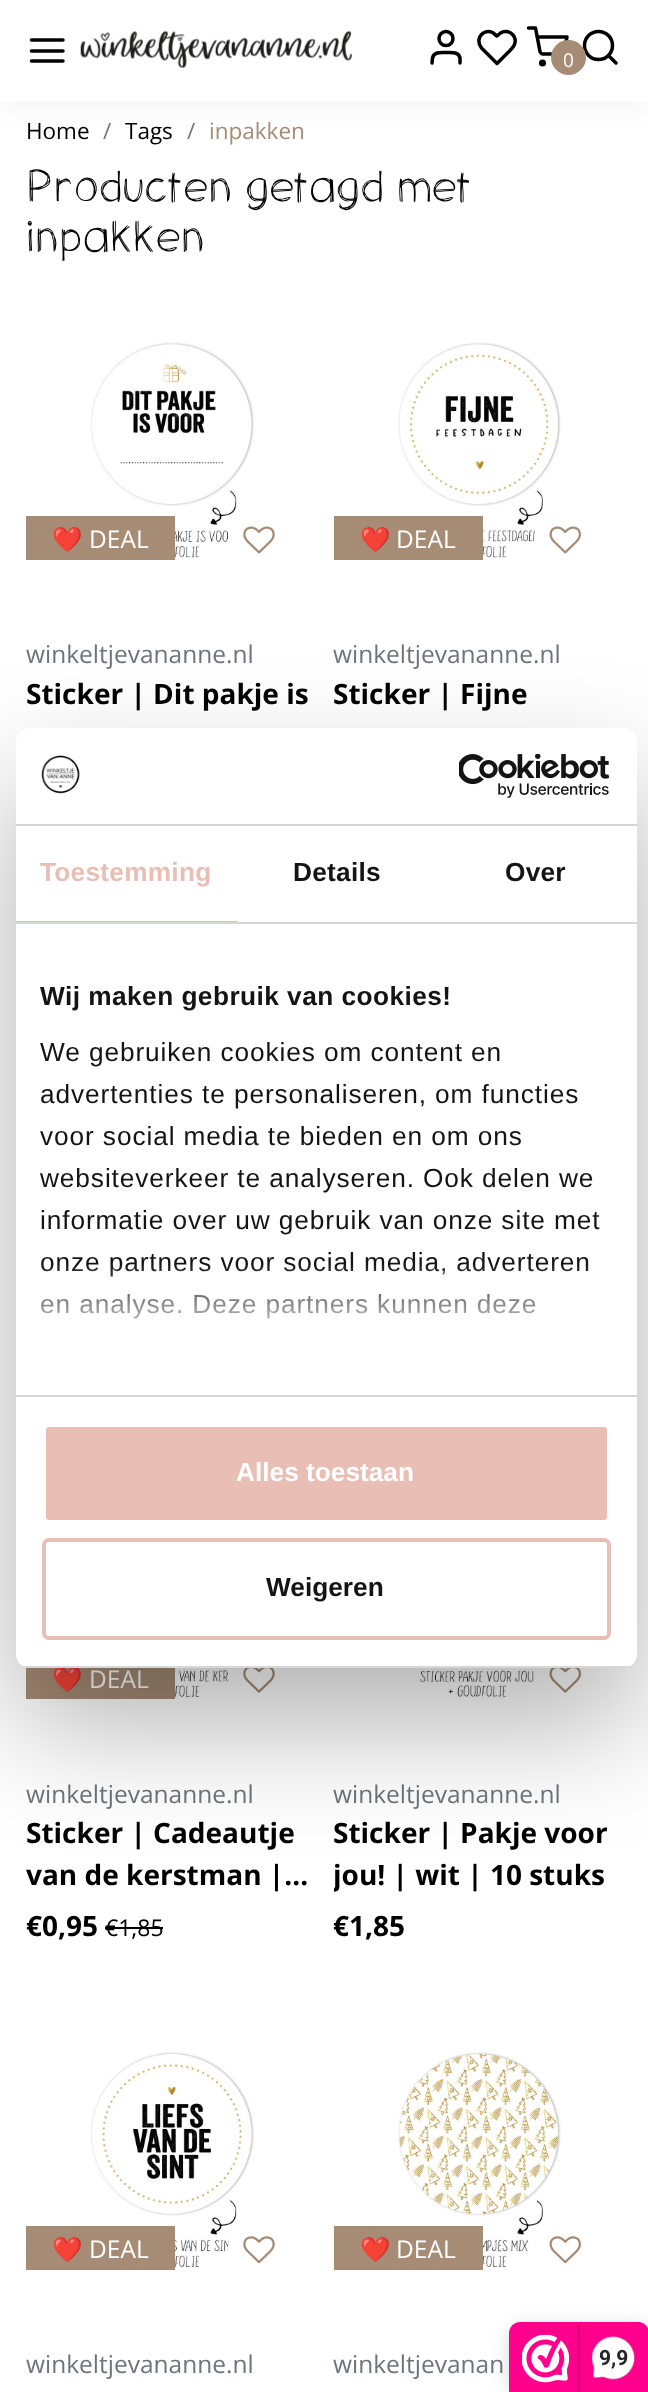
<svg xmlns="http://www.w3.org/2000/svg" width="648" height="2392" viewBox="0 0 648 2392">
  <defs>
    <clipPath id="clip1"><rect x="334" y="1811" width="289" height="84"/></clipPath>
    <linearGradient id="g1" gradientUnits="userSpaceOnUse" x1="314" y1="1394" x2="314" y2="1263"><stop offset="0" stop-color="rgb(255,255,255)"/><stop offset="0.5" stop-color="rgb(255,255,255)" stop-opacity="0.8"/><stop offset="1" stop-color="rgb(255,255,255)" stop-opacity="0"/></linearGradient>
    <clipPath id="clip2"><rect x="16" y="728" width="621" height="940" rx="14"/></clipPath>
  </defs>
  <rect width="100%" height="100%" fill="rgb(255,255,255)"/>
  <rect x="0" y="4" width="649" height="101" fill="rgba(0,0,0,0.05)" filter="blur(14px)"/>
  <rect x="0" y="0" width="648" height="102" fill="rgb(255,255,255)"/>
  <path d="M31.5 51H63M31.5 40H63M31.5 61H63" fill="none" stroke="rgb(0,0,0)" stroke-width="3.5" stroke-linecap="round" stroke-linejoin="round"/>
  <image x="80" y="31" width="272" height="37" href="pic1.png"/>
  <path d="M460 63V58C458.5 51.5 451.5 52.5 446 52.5C441 52.5 434 51.5 432.5 58L432 63" fill="none" stroke="rgb(0,0,0)" stroke-width="3.5" stroke-linecap="round" stroke-linejoin="round"/>
  <circle cx="446" cy="38.5" r="7" fill="none" stroke="rgb(0,0,0)" stroke-width="3.5"/>
  <path d="M512.5 34.5C509.5 31 504 30.5 500.5 33L497 36L495 34.5C491.5 30.5 485.5 30.5 481.5 34.5C478 38 478 44 481.5 48L497 63.5L506 54.5C510 50 516.5 46 515 39C514.5 37.5 514 35.5 512.5 34.5Z" fill="none" stroke="rgb(0,0,0)" stroke-width="3.5" stroke-linecap="round" stroke-linejoin="round"/>
  <circle cx="542.5" cy="63" r="1.8" fill="none" stroke="rgb(0,0,0)" stroke-width="3.5"/>
  <path d="M528.5 28H535.5L540 51.5C540.5 53 542 54.5 543.5 54H560.5C562.5 54.5 564 53 564 51.5L567 37H537" fill="none" stroke="rgb(0,0,0)" stroke-width="3.5" stroke-linecap="round" stroke-linejoin="round"/>
  <circle cx="598.5" cy="45.5" r="14" fill="none" stroke="rgb(0,0,0)" stroke-width="3.5"/>
  <circle cx="568.5" cy="57.5" r="17.5" fill="rgb(166,140,117)"/>
  <text x="563" y="67" font-family="Open Sans" font-size="19" fill="rgb(255,255,255)">0</text>
  <path d="M616 63L608.5 55.5" fill="none" stroke="rgb(0,0,0)" stroke-width="3.5" stroke-linecap="round" stroke-linejoin="round"/>
  <text x="26" y="139" font-family="Open Sans" font-size="22.5" fill="rgb(0,0,0)">Home</text>
  <text x="103" y="139" font-family="Open Sans" font-size="22.5" fill="rgb(108,117,125)">/</text>
  <text x="125" y="139" font-family="Open Sans" font-size="22.5" fill="rgb(0,0,0)">Tags</text>
  <text x="187" y="139" font-family="Open Sans" font-size="22.5" fill="rgb(108,117,125)">/</text>
  <text x="209" y="139" font-family="Open Sans" font-size="22.5" fill="rgb(166,140,117)">inpakken</text>
  <g font-family="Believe" font-size="42" font-weight="500" fill="rgb(0,0,0)">
    <text>
      <tspan x="26" y="201">Producten getagd met</tspan>
      <tspan x="26" y="251">inpakken</tspan>
    </text>
  </g>
  <image x="91" y="342" width="163" height="217" href="pic2.png"/>
  <rect x="26" y="516" width="149" height="44" fill="rgb(166,140,117)"/>
  <text x="52" y="548" font-family="Noto Color Emoji" font-size="24.5" fill="rgb(255,255,255)">❤️</text>
  <text x="89" y="548" font-family="Open Sans" font-size="24.5" fill="rgb(255,255,255)">DEAL</text>
  <circle cx="259.5" cy="537.5" r="31.5" fill="rgb(255,255,255)"/>
  <image x="243" y="526" width="32" height="28" href="pic3.png"/>
  <text x="26" y="663" font-family="Open Sans" font-size="24.5" fill="rgb(108,117,125)">winkeltjevananne.nl</text>
  <text x="26" y="704" font-family="Open Sans" font-size="28" font-weight="bold" fill="rgb(0,0,0)">Sticker | Dit pakje is</text>
  <image x="398" y="342" width="163" height="217" href="pic4.png"/>
  <rect x="334" y="516" width="149" height="44" fill="rgb(166,140,117)"/>
  <text x="360" y="548" font-family="Noto Color Emoji" font-size="24.5" fill="rgb(255,255,255)">❤️</text>
  <text x="396" y="548" font-family="Open Sans" font-size="24.5" fill="rgb(255,255,255)">DEAL</text>
  <circle cx="565.5" cy="537.5" r="31.5" fill="rgb(255,255,255)"/>
  <image x="549" y="526" width="32" height="28" href="pic5.png"/>
  <text x="333" y="663" font-family="Open Sans" font-size="24.5" fill="rgb(108,117,125)">winkeltjevananne.nl</text>
  <text x="333" y="704" font-family="Open Sans" font-size="28" font-weight="bold" fill="rgb(0,0,0)">Sticker | Fijne</text>
  <rect x="26" y="1667" width="149" height="32" fill="rgb(166,140,117)"/>
  <text x="52" y="1688" font-family="Noto Color Emoji" font-size="24.5" fill="rgb(255,255,255)">❤️</text>
  <text x="89" y="1688" font-family="Open Sans" font-size="24.5" fill="rgb(255,255,255)">DEAL</text>
  <image x="175" y="1668" width="63" height="31" href="pic6.png"/>
  <circle cx="259.5" cy="1676.5" r="31.5" fill="rgb(255,255,255)"/>
  <image x="243" y="1668" width="32" height="25" href="pic7.png"/>
  <text x="26" y="1803" font-family="Open Sans" font-size="24.5" fill="rgb(108,117,125)">winkeltjevananne.nl</text>
  <g font-family="Open Sans" font-size="28" font-weight="bold" fill="rgb(0,0,0)">
    <text>
      <tspan x="26" y="1843">Sticker | Cadeautje</tspan>
      <tspan x="26" y="1885">van de kerstman |…</tspan>
      <tspan x="26" y="1936">€0,95</tspan>
    </text>
  </g>
  <text x="105" y="1936" font-family="Open Sans" font-size="23" fill="rgb(0,0,0)">€1,85</text>
  <rect x="105" y="1927" width="58" height="2" fill="rgb(0,0,0)"/>
  <image x="398" y="1668" width="146" height="31" href="pic8.png"/>
  <image x="549" y="1668" width="32" height="25" href="pic9.png"/>
  <text x="333" y="1803" font-family="Open Sans" font-size="24.5" fill="rgb(108,117,125)">winkeltjevananne.nl</text>
  <text x="333" y="1843" font-family="Open Sans" font-size="28" font-weight="bold" fill="rgb(0,0,0)">Sticker | Pakje voor</text>
  <g clip-path="url(#clip1)">
    <text x="333" y="1885" font-family="Open Sans" font-size="28" font-weight="bold" fill="rgb(0,0,0)">jou! | wit | 10 stuks</text>
  </g>
  <text x="333" y="1936" font-family="Open Sans" font-size="28" font-weight="bold" fill="rgb(0,0,0)">€1,85</text>
  <image x="91" y="2052" width="163" height="217" href="pic10.png"/>
  <rect x="26" y="2226" width="149" height="44" fill="rgb(166,140,117)"/>
  <text x="52" y="2258" font-family="Noto Color Emoji" font-size="24.5" fill="rgb(255,255,255)">❤️</text>
  <text x="89" y="2258" font-family="Open Sans" font-size="24.5" fill="rgb(255,255,255)">DEAL</text>
  <circle cx="259.5" cy="2247.5" r="31.5" fill="rgb(255,255,255)"/>
  <image x="243" y="2236" width="32" height="28" href="pic11.png"/>
  <text x="26" y="2373" font-family="Open Sans" font-size="24.5" fill="rgb(108,117,125)">winkeltjevananne.nl</text>
  <image x="398" y="2052" width="163" height="217" href="pic12.png"/>
  <rect x="334" y="2226" width="149" height="44" fill="rgb(166,140,117)"/>
  <text x="360" y="2258" font-family="Noto Color Emoji" font-size="24.5" fill="rgb(255,255,255)">❤️</text>
  <text x="396" y="2258" font-family="Open Sans" font-size="24.5" fill="rgb(255,255,255)">DEAL</text>
  <image x="549" y="2236" width="32" height="28" href="pic13.png"/>
  <text x="333" y="2373" font-family="Open Sans" font-size="24.5" fill="rgb(108,117,125)">winkeltjevanan</text>
  <rect x="16" y="784" width="621" height="940" rx="14" fill="rgba(0,0,0,0.3)" filter="blur(59.5px)"/>
  <rect x="16" y="728" width="621" height="940" rx="14" fill="rgb(255,255,255)"/>
  <rect x="16" y="824" width="621" height="2" fill="rgb(214,214,214)"/>
  <image x="41" y="755" width="39" height="39" href="pic14.png"/>
  <image x="459" y="754" width="151" height="44" href="pic15.png"/>
  <rect x="16" y="922" width="621" height="2" fill="rgb(214,214,214)"/>
  <rect x="16" y="921" width="222" height="1" fill="rgb(233,190,181)"/>
  <text x="40" y="881" font-family="Liberation Sans" font-size="26.25" font-weight="bold" letter-spacing="0.25" fill="rgb(233,190,181)">Toestemming</text>
  <g font-family="Liberation Sans" font-size="26.25" font-weight="bold" letter-spacing="0.25" fill="rgb(20,20,20)">
    <text x="293" y="881">Details</text>
    <text x="505" y="881">Over</text>
  </g>
  <rect x="16" y="1395" width="621" height="2" fill="rgb(214,214,214)"/>
  <text x="40" y="1005" font-family="Liberation Sans" font-size="26.25" font-weight="bold" letter-spacing="0.45" fill="rgb(20,20,20)">Wij maken gebruik van cookies!</text>
  <g font-family="Liberation Sans" font-size="26.25" letter-spacing="0.9" fill="rgb(20,20,20)">
    <text>
      <tspan x="40" y="1061">We gebruiken cookies om content en</tspan>
      <tspan x="40" y="1103">advertenties te personaliseren, om functies</tspan>
      <tspan x="40" y="1145">voor social media te bieden en om ons</tspan>
      <tspan x="40" y="1187">websiteverkeer te analyseren. Ook delen we</tspan>
      <tspan x="40" y="1229">informatie over uw gebruik van onze site met</tspan>
      <tspan x="40" y="1271">onze partners voor social media, adverteren</tspan>
      <tspan x="40" y="1313">en analyse. Deze partners kunnen deze</tspan>
    </text>
  </g>
  <rect x="41" y="1265" width="547" height="54" fill="url(#g1)"/>
  <g clip-path="url(#clip2)">
    <rect x="16" y="1666" width="621" height="2" fill="rgb(214,214,214)"/>
  </g>
  <rect x="44" y="1425" width="565" height="97" rx="5" fill="rgb(233,190,181)" stroke="rgb(255,255,255)" stroke-width="4"/>
  <text x="236" y="1481" font-family="Liberation Sans" font-size="26.25" font-weight="bold" fill="rgb(255,255,255)">Alles toestaan</text>
  <rect x="44" y="1540" width="565" height="98" rx="5" fill="none" stroke="rgb(233,190,181)" stroke-width="4"/>
  <text x="266" y="1596" font-family="Liberation Sans" font-size="26.25" font-weight="bold" fill="rgb(20,20,20)">Weigeren</text>
  <rect x="509" y="2326" width="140" height="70" rx="11" fill="rgba(0,0,0,0.15)" filter="blur(9px)"/>
  <path d="M520 2322H638C644 2322 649 2327 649 2333V2392H509V2333C509 2327 514 2322 520 2322Z" fill="rgb(254,0,140)"/>
  <image x="522" y="2335" width="47" height="48" href="pic16.png"/>
  <rect x="578" y="2324" width="2" height="68" fill="rgb(216,0,119)"/>
  <image x="591" y="2336" width="45" height="44" href="pic17.png"/>
  <text x="599" y="2365" font-family="Roboto" font-size="21" font-weight="bold" fill="rgb(39,38,38)">9,9</text>
</svg>
